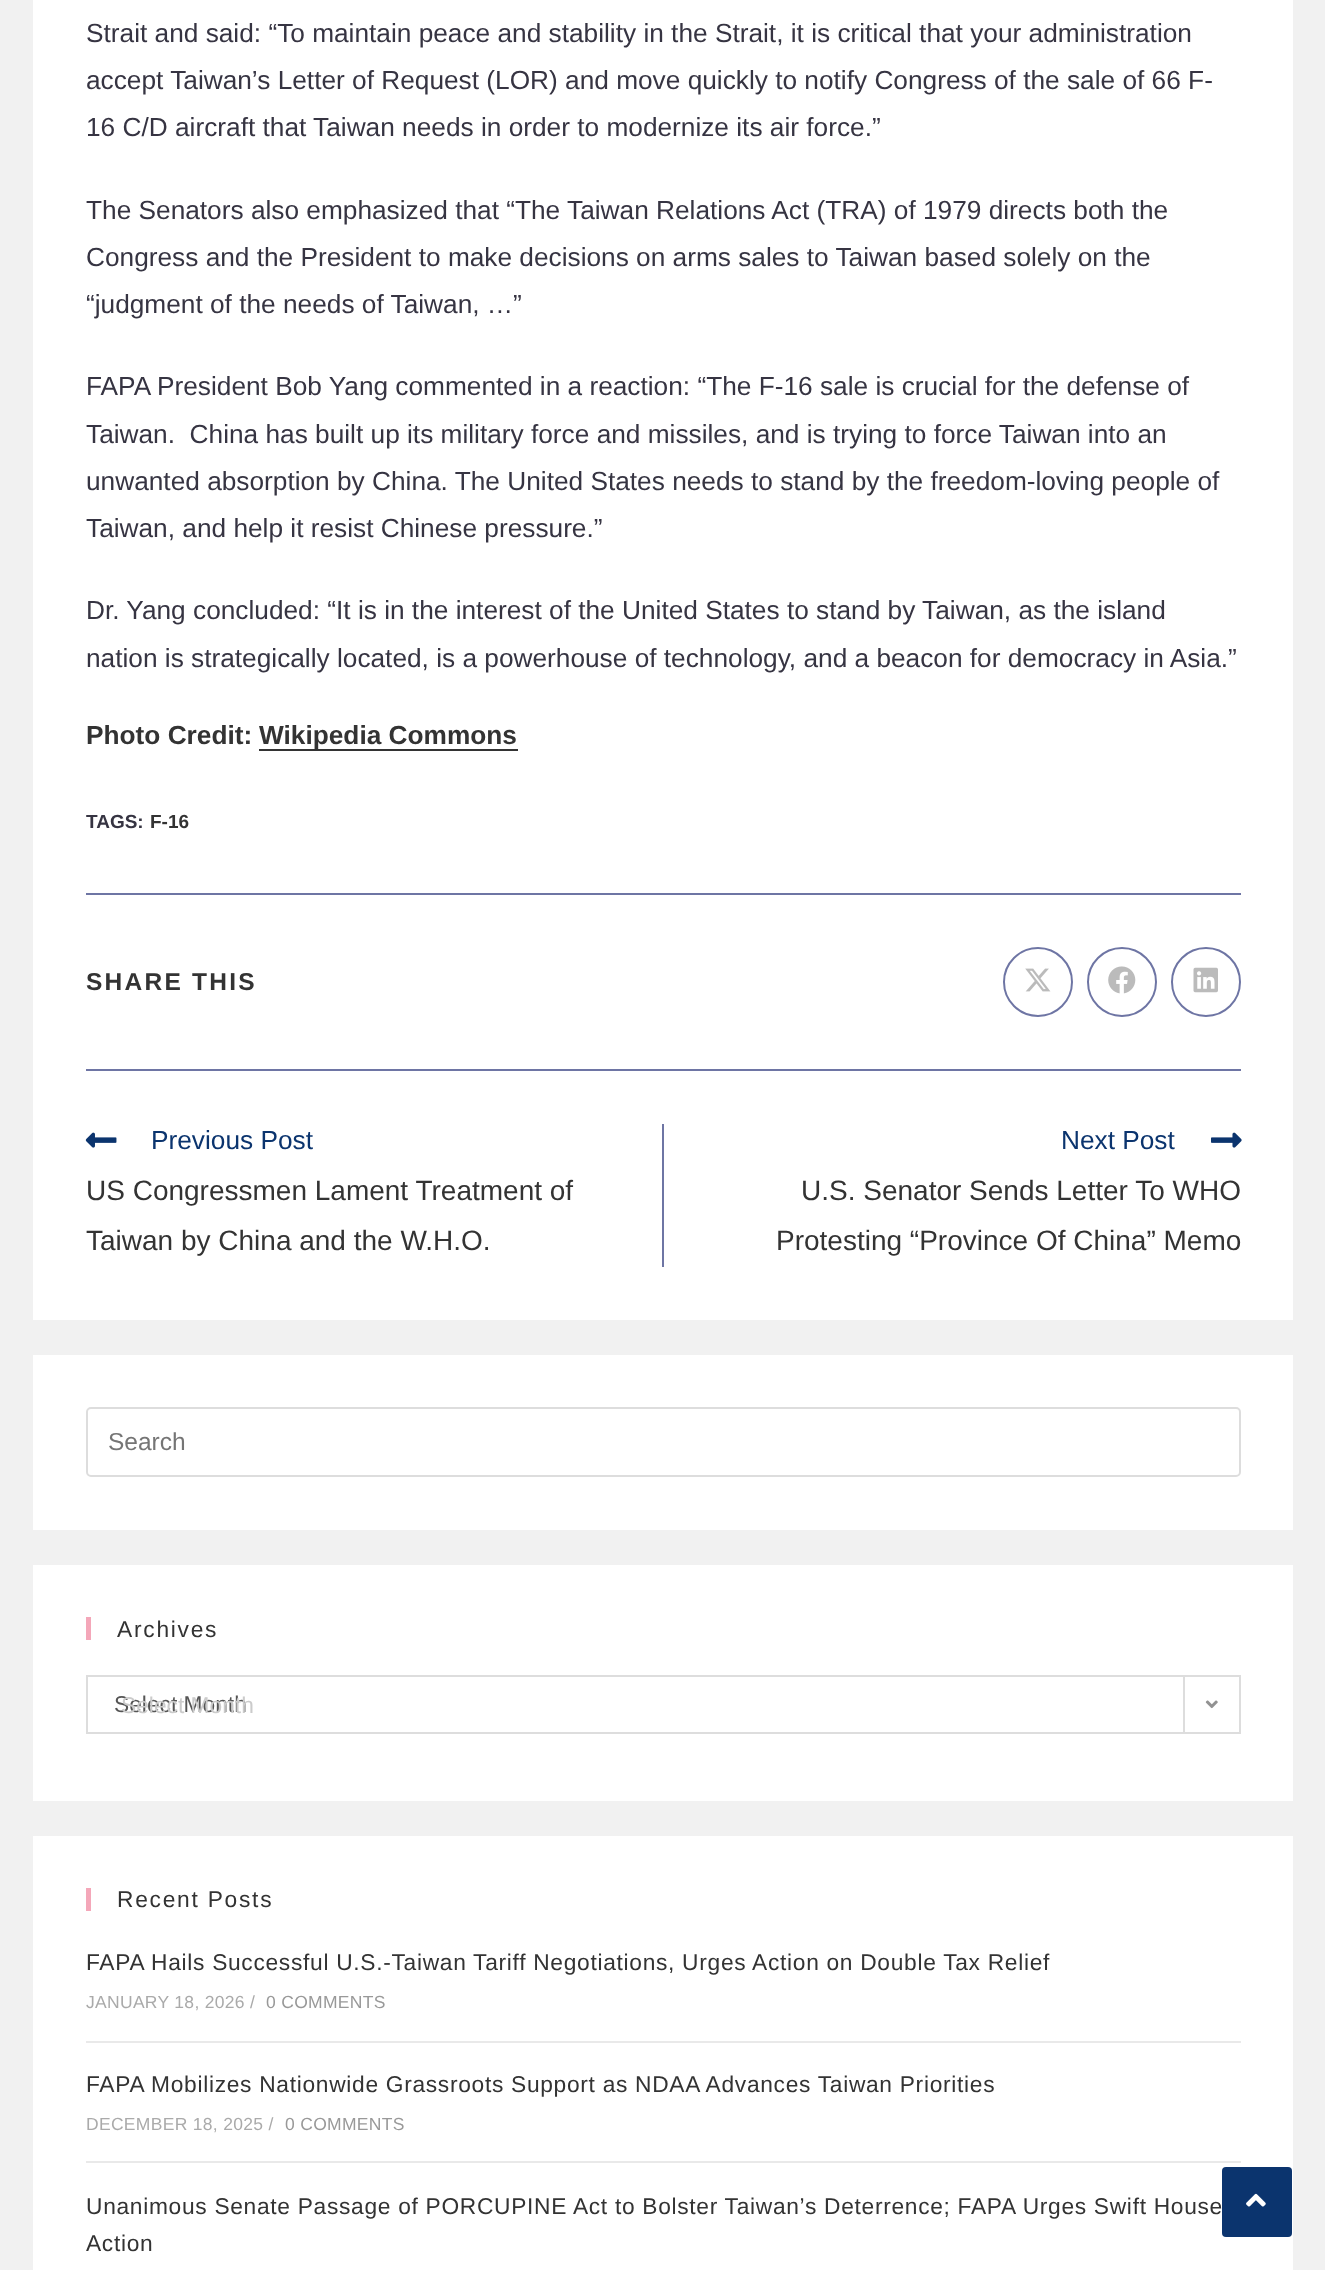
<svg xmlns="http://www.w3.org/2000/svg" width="1325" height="2270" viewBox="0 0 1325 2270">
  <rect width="100%" height="100%" fill="rgb(241,241,241)"/>
  <rect x="33" y="0" width="1260" height="1320" fill="rgb(255,255,255)"/>
  <g font-family="Liberation Sans" font-size="26.25" fill="rgb(54,52,66)">
    <text>
      <tspan x="86" y="42">Strait and said: “To maintain peace and stability in the Strait, it is critical that your administration</tspan>
      <tspan x="86" y="89">accept Taiwan’s Letter of Request (LOR) and move quickly to notify Congress of the sale of 66 F-</tspan>
      <tspan x="86" y="136">16 C/D aircraft that Taiwan needs in order to modernize its air force.”</tspan>
    </text>
    <text>
      <tspan x="86" y="219">The Senators also emphasized that “The Taiwan Relations Act (TRA) of 1979 directs both the</tspan>
      <tspan x="86" y="266">Congress and the President to make decisions on arms sales to Taiwan based solely on the</tspan>
      <tspan x="86" y="313">“judgment of the needs of Taiwan, …”</tspan>
    </text>
    <text xml:space="preserve"><tspan x="86" y="395">FAPA President Bob Yang commented in a reaction: “The F-16 sale is crucial for the defense of</tspan><tspan x="86" y="443">Taiwan.  China has built up its military force and missiles, and is trying to force Taiwan into an</tspan><tspan x="86" y="490">unwanted absorption by China. The United States needs to stand by the freedom-loving people of</tspan><tspan x="86" y="537">Taiwan, and help it resist Chinese pressure.”</tspan></text>
    <text>
      <tspan x="86" y="619">Dr. Yang concluded: “It is in the interest of the United States to stand by Taiwan, as the island</tspan>
      <tspan x="86" y="667">nation is strategically located, is a powerhouse of technology, and a beacon for democracy in Asia.”</tspan>
    </text>
  </g>
  <text x="86" y="744" font-family="Liberation Sans" font-size="26.25" font-weight="bold" fill="rgb(51,51,51)">Photo Credit:</text>
  <rect x="259" y="749" width="259" height="2" fill="rgb(51,51,51)"/>
  <text x="259" y="744" font-family="Liberation Sans" font-size="26.25" font-weight="bold" fill="rgb(51,51,51)">Wikipedia Commons</text>
  <text x="86" y="828" font-family="Liberation Sans" font-size="19" font-weight="bold" fill="rgb(54,52,66)">TAGS:</text>
  <text x="150" y="828" font-family="Liberation Sans" font-size="19" font-weight="bold" fill="rgb(51,51,51)">F-16</text>
  <rect x="86" y="893" width="1155" height="2" fill="rgb(110,117,164)"/>
  <text x="86" y="990" font-family="Liberation Sans" font-size="24.5" font-weight="bold" letter-spacing="2.25" fill="rgb(51,51,51)">SHARE THIS</text>
  <circle cx="1038" cy="982" r="34" fill="none" stroke="rgb(110,117,164)" stroke-width="2"/>
  <image x="1025" y="968" width="26" height="24" href="pic1.png"/>
  <circle cx="1122" cy="982" r="34" fill="none" stroke="rgb(110,117,164)" stroke-width="2"/>
  <image x="1108" y="966" width="28" height="28" href="pic2.png"/>
  <circle cx="1206" cy="982" r="34" fill="none" stroke="rgb(110,117,164)" stroke-width="2"/>
  <image x="1193" y="967" width="25" height="26" href="pic3.png"/>
  <rect x="86" y="1069" width="1155" height="2" fill="rgb(110,117,164)"/>
  <rect x="662" y="1124" width="2" height="143" fill="rgb(110,117,164)"/>
  <image x="85" y="1132" width="32" height="16" href="pic4.png"/>
  <text x="151" y="1149" font-family="Liberation Sans" font-size="26.25" fill="rgb(11,52,110)">Previous Post</text>
  <g font-family="Liberation Sans" font-size="28" fill="rgb(51,51,51)">
    <text>
      <tspan x="86" y="1200">US Congressmen Lament Treatment of</tspan>
      <tspan x="86" y="1250">Taiwan by China and the W.H.O.</tspan>
    </text>
  </g>
  <text x="1061" y="1149" font-family="Liberation Sans" font-size="26.25" fill="rgb(11,52,110)">Next Post</text>
  <image x="1211" y="1132" width="31" height="16" href="pic5.png"/>
  <g font-family="Liberation Sans" font-size="28" fill="rgb(51,51,51)">
    <text x="801" y="1200">U.S. Senator Sends Letter To WHO</text>
    <text x="776" y="1250">Protesting “Province Of China” Memo</text>
  </g>
  <rect x="33" y="1355" width="1260" height="175" fill="rgb(255,255,255)"/>
  <rect x="87" y="1408" width="1153" height="68" rx="4" fill="none" stroke="rgb(221,221,221)" stroke-width="2"/>
  <text x="108" y="1450" font-family="Liberation Sans" font-size="24.5" fill="rgb(117,117,117)">Search</text>
  <rect x="33" y="1565" width="1260" height="236" fill="rgb(255,255,255)"/>
  <rect x="86" y="1617" width="5" height="23" fill="rgb(244,167,185)"/>
  <text x="117" y="1637" font-family="Liberation Sans" font-size="22.75" letter-spacing="1.75" fill="rgb(51,51,51)">Archives</text>
  <rect x="87" y="1676" width="1153" height="57" fill="none" stroke="rgb(221,221,221)" stroke-width="2"/>
  <text x="114" y="1712" font-family="Liberation Sans" font-size="22.75" fill="rgb(85,85,85)">Select Month</text>
  <rect x="1183" y="1677" width="2" height="56" fill="rgb(221,221,221)"/>
  <image x="1205" y="1700" width="13" height="9" href="pic6.png"/>
  <text x="121" y="1713" font-family="Liberation Sans" font-size="22.75" fill="rgb(203,203,203)">Select Month</text>
  <rect x="33" y="1836" width="1260" height="434" fill="rgb(255,255,255)"/>
  <rect x="86" y="1888" width="5" height="23" fill="rgb(244,167,185)"/>
  <text x="117" y="1907" font-family="Liberation Sans" font-size="22.75" letter-spacing="1.75" fill="rgb(51,51,51)">Recent Posts</text>
  <text x="86" y="1970" font-family="Liberation Sans" font-size="22.75" letter-spacing="0.7" fill="rgb(51,51,51)">FAPA Hails Successful U.S.-Taiwan Tariff Negotiations, Urges Action on Double Tax Relief</text>
  <text x="86" y="2008" font-family="Liberation Sans" font-size="17.5" letter-spacing="0.3" fill="rgb(170,170,170)">JANUARY 18, 2026 /</text>
  <text x="266" y="2008" font-family="Liberation Sans" font-size="17.5" letter-spacing="0.3" fill="rgb(153,153,153)">0 COMMENTS</text>
  <rect x="86" y="2041" width="1155" height="2" fill="rgb(233,233,233)"/>
  <text x="86" y="2092" font-family="Liberation Sans" font-size="22.75" letter-spacing="0.7" fill="rgb(51,51,51)">FAPA Mobilizes Nationwide Grassroots Support as NDAA Advances Taiwan Priorities</text>
  <text x="86" y="2130" font-family="Liberation Sans" font-size="17.5" letter-spacing="0.3" fill="rgb(170,170,170)">DECEMBER 18, 2025 /</text>
  <text x="285" y="2130" font-family="Liberation Sans" font-size="17.5" letter-spacing="0.3" fill="rgb(153,153,153)">0 COMMENTS</text>
  <rect x="86" y="2161" width="1155" height="2" fill="rgb(233,233,233)"/>
  <g font-family="Liberation Sans" font-size="22.75" letter-spacing="0.7" fill="rgb(51,51,51)">
    <text>
      <tspan x="86" y="2214">Unanimous Senate Passage of PORCUPINE Act to Bolster Taiwan’s Deterrence; FAPA Urges Swift House</tspan>
      <tspan x="86" y="2251">Action</tspan>
    </text>
  </g>
  <rect x="1222" y="2167" width="70" height="70" rx="4" fill="rgb(11,52,110)"/>
  <image x="1246" y="2193" width="20" height="14" href="pic7.png"/>
</svg>
